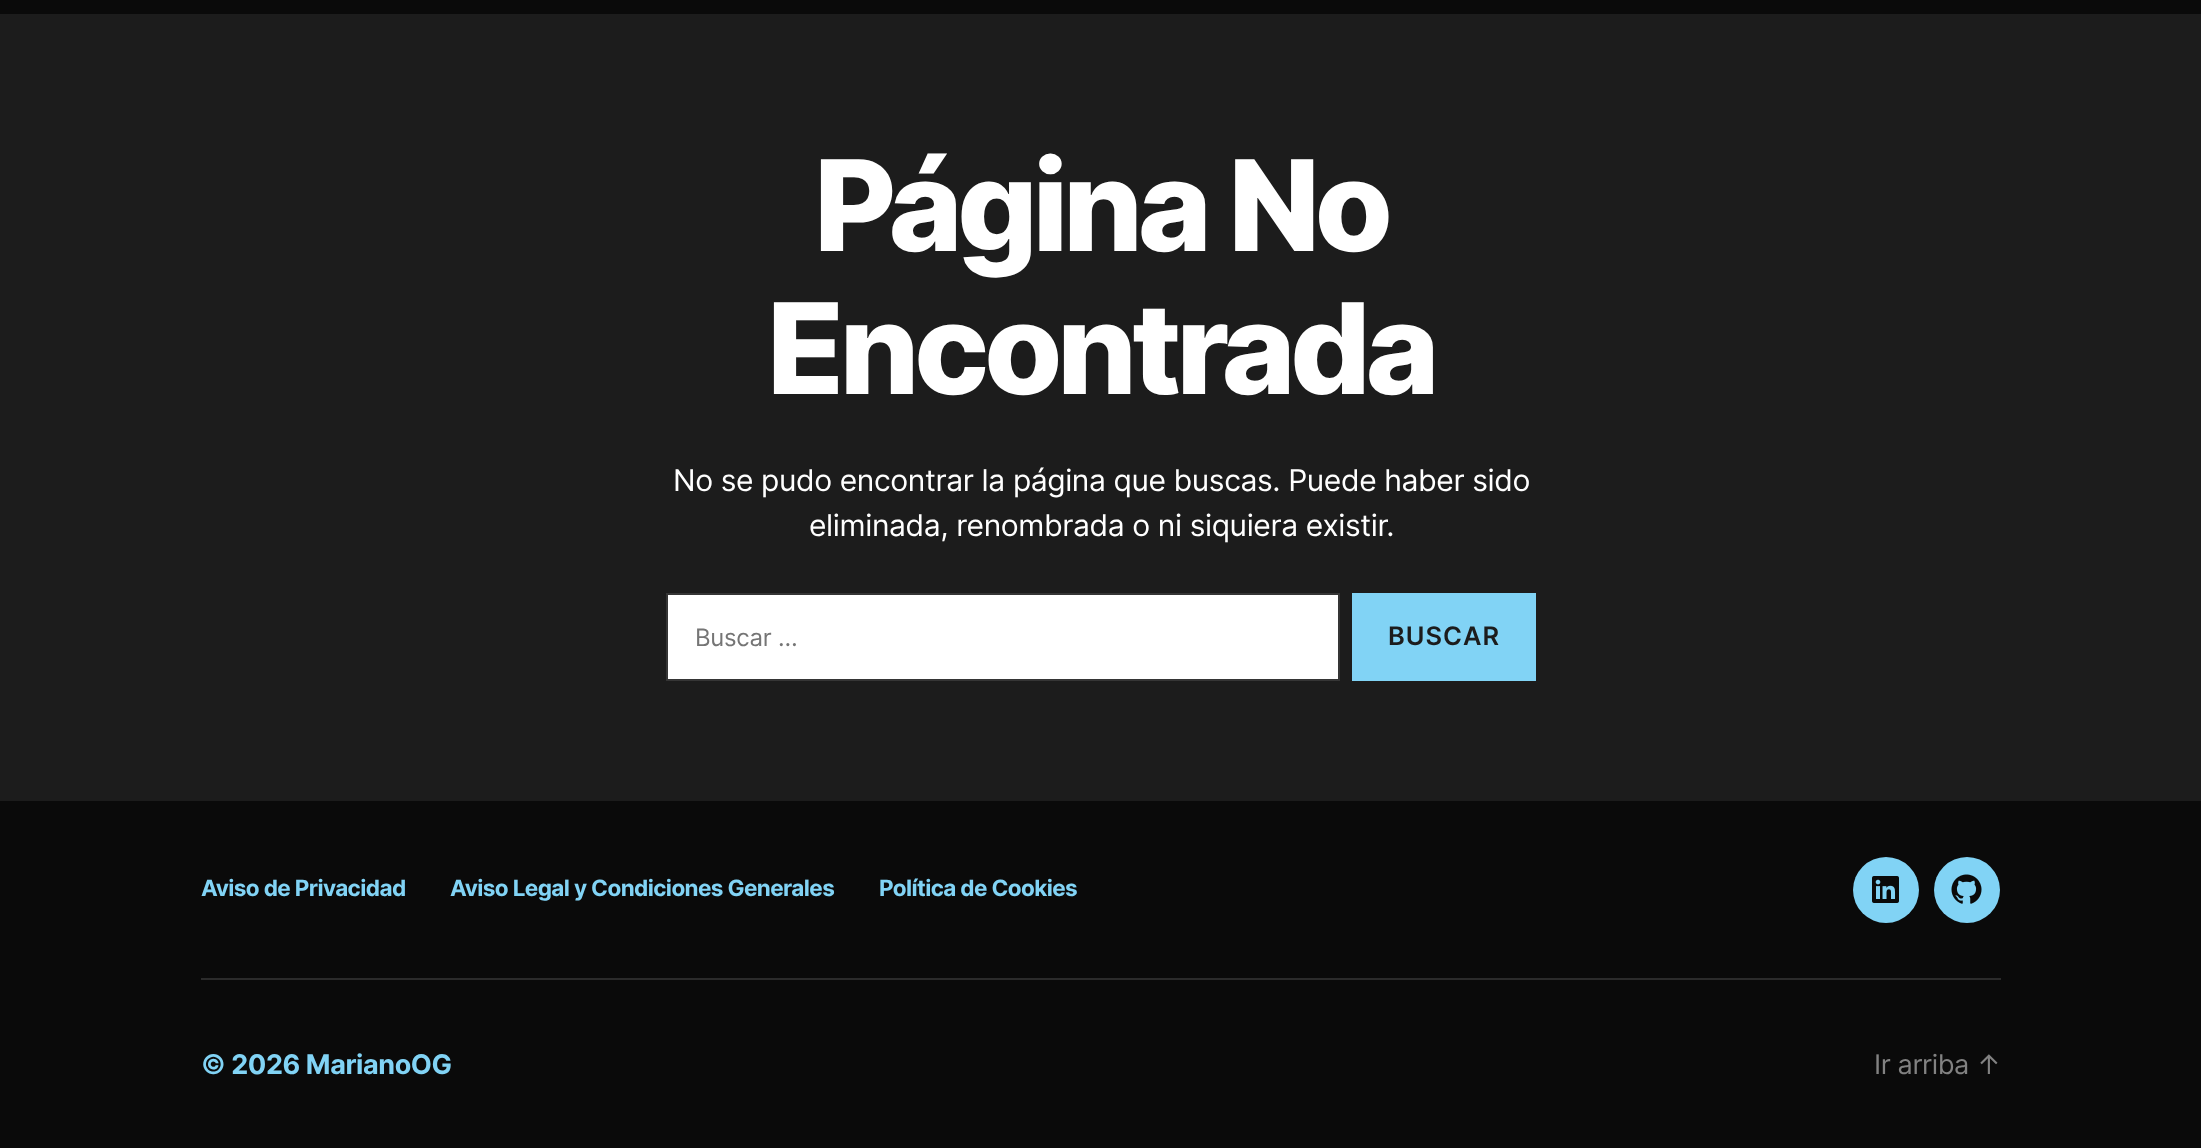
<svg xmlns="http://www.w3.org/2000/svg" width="2201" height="1148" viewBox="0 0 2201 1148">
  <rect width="100%" height="100%" fill="rgb(28,28,28)"/>
  <rect x="0" y="0" width="2201" height="14" fill="rgb(10,10,10)"/>
  <g font-family="Inter" font-size="126" font-weight="800" letter-spacing="-5.25" fill="rgb(255,255,255)">
    <text x="814" y="251">Página No</text>
    <text x="767" y="394">Encontrada</text>
  </g>
  <g font-family="Inter" font-size="30" letter-spacing="-0.4" fill="rgb(255,255,255)">
    <text x="673" y="491">No se pudo encontrar la página que buscas. Puede haber sido</text>
    <text x="809" y="536">eliminada, renombrada o ni siquiera existir.</text>
  </g>
  <rect x="667" y="594" width="672" height="86" fill="rgb(255,255,255)" stroke="rgb(53,53,53)" stroke-width="2"/>
  <text x="695" y="646" font-family="Inter" font-size="24" letter-spacing="-0.25" fill="rgb(117,117,117)">Buscar …</text>
  <rect x="1352" y="593" width="184" height="88" fill="rgb(129,211,245)"/>
  <text x="1388" y="645" font-family="Inter" font-size="25.5" font-weight="600" letter-spacing="1" fill="rgb(28,28,28)">BUSCAR</text>
  <rect x="0" y="801" width="2201" height="347" fill="rgb(10,10,10)"/>
  <rect x="201" y="978" width="1800" height="2" fill="rgb(43,43,43)"/>
  <g font-family="Inter" font-size="22.5" font-weight="bold" letter-spacing="-0.6" fill="rgb(129,211,245)">
    <text x="201" y="896">Aviso de Privacidad</text>
    <text x="450" y="896">Aviso Legal y Condiciones Generales</text>
    <text x="879" y="896">Política de Cookies</text>
  </g>
  <circle cx="1886" cy="890" r="33" fill="rgb(129,211,245)"/>
  <image x="1872" y="876" width="27" height="27" href="pic1.png"/>
  <circle cx="1967" cy="890" r="33" fill="rgb(129,211,245)"/>
  <image x="1951" y="874" width="31" height="30" href="pic2.png"/>
  <text x="201" y="1074" font-family="Inter" font-size="27" font-weight="bold" letter-spacing="-0.4" fill="rgb(129,211,245)">© 2026 MarianoOG</text>
  <text x="1874" y="1074" font-family="Inter" font-size="27" letter-spacing="-0.4" fill="rgb(130,130,130)">Ir arriba ↑</text>
</svg>
